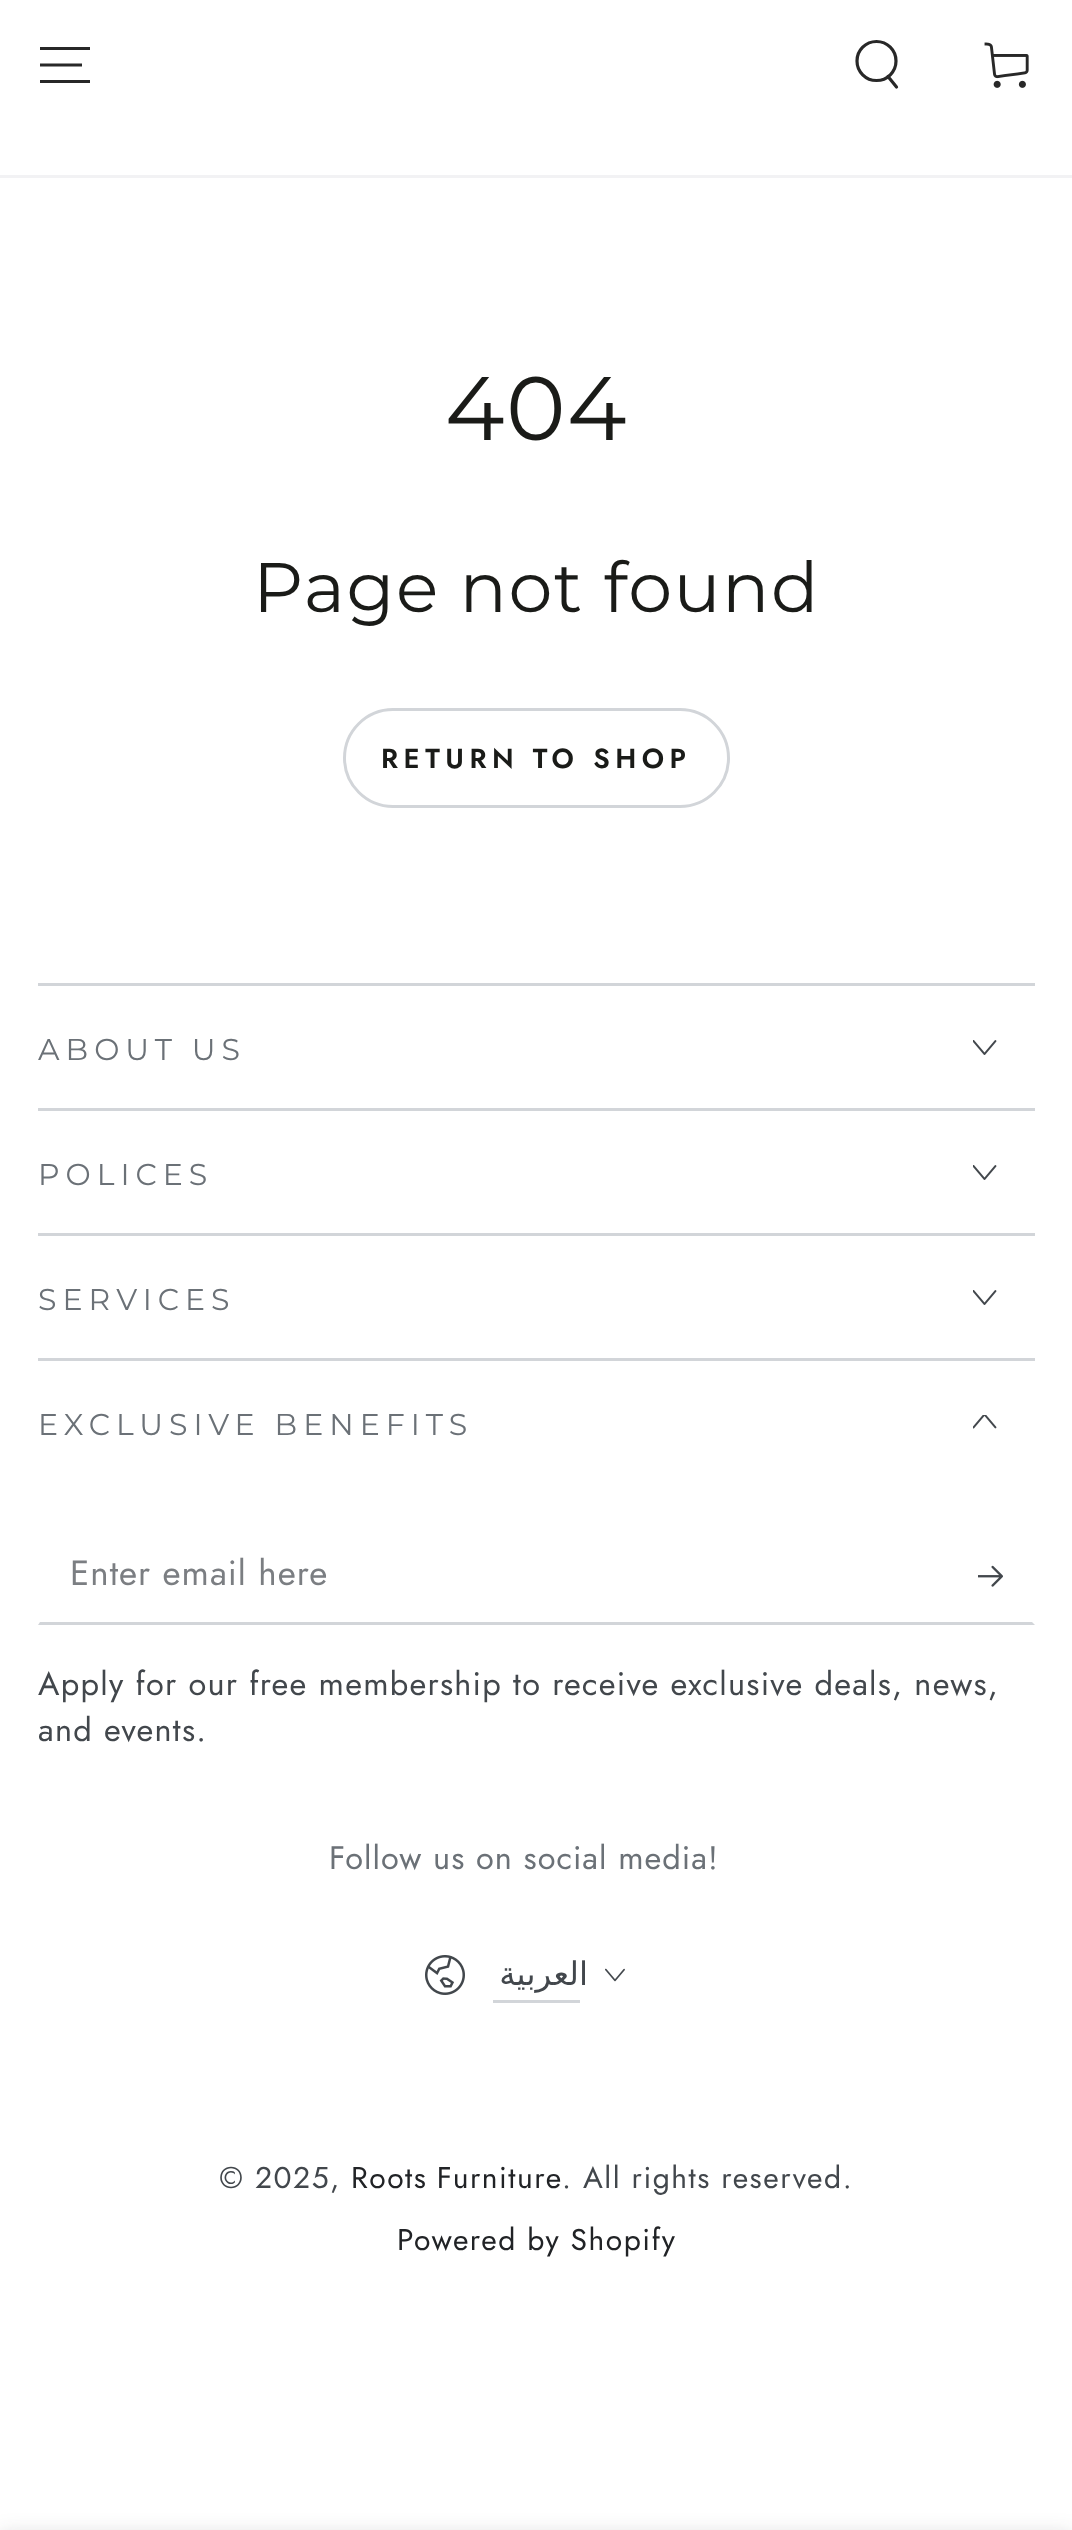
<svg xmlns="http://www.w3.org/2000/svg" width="1072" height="2530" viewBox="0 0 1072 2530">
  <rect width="100%" height="100%" fill="rgb(255,255,255)"/>
  <path d="M0 175V178H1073V3H1072V175Z" fill="rgb(242,242,244)"/>
  <path d="M40 81.5H90M40 65H82M40 48.5H90" fill="none" stroke="rgb(40,40,40)" stroke-width="2.8"/>
  <circle cx="876.5" cy="61" r="19.5" fill="none" stroke="rgb(40,40,40)" stroke-width="3.2"/>
  <path d="M888 76.5L896.5 87" fill="none" stroke="rgb(40,40,40)" stroke-width="3.2" stroke-linecap="round"/>
  <image x="984" y="42" width="45" height="46" href="pic1.png"/>
  <text x="445" y="440" font-family="Montserrat" font-size="90" letter-spacing="1.5" fill="rgb(26,27,24)">404</text>
  <text x="253" y="612" font-family="Montserrat" font-size="70" letter-spacing="1.5" fill="rgb(26,27,24)">Page not found</text>
  <rect x="344.5" y="709.5" width="384" height="97" rx="48.5" fill="none" stroke="rgb(210,213,217)" stroke-width="3"/>
  <text x="381" y="768" font-family="Jost" font-size="27.5" font-weight="600" letter-spacing="5.5" fill="rgb(26,27,24)">RETURN TO SHOP</text>
  <rect x="38" y="983" width="997" height="3" fill="rgb(210,213,217)"/>
  <rect x="38" y="1108" width="997" height="3" fill="rgb(210,213,217)"/>
  <text x="38" y="1060" font-family="Montserrat" font-size="30" letter-spacing="6" fill="rgb(107,113,119)">ABOUT US</text>
  <image x="973" y="1040" width="24" height="15" href="pic2.png"/>
  <rect x="38" y="1233" width="997" height="3" fill="rgb(210,213,217)"/>
  <text x="38" y="1185" font-family="Montserrat" font-size="30" letter-spacing="6" fill="rgb(107,113,119)">POLICES</text>
  <image x="973" y="1165" width="24" height="15" href="pic2.png"/>
  <rect x="38" y="1358" width="997" height="3" fill="rgb(210,213,217)"/>
  <text x="38" y="1310" font-family="Montserrat" font-size="30" letter-spacing="6" fill="rgb(107,113,119)">SERVICES</text>
  <image x="973" y="1290" width="24" height="15" href="pic2.png"/>
  <text x="38" y="1435" font-family="Montserrat" font-size="30" letter-spacing="6" fill="rgb(107,113,119)">EXCLUSIVE BENEFITS</text>
  <image x="973" y="1415" width="24" height="14" href="pic3.png"/>
  <path d="M1035 1625H38L40 1622H1032Z" fill="rgb(210,213,217)"/>
  <text x="70" y="1585" font-family="Jost" font-size="35" letter-spacing="1" fill="rgb(123,126,130)">Enter email here</text>
  <image x="978" y="1565" width="25" height="22" href="pic4.png"/>
  <g font-family="Jost" font-size="32.5" letter-spacing="1.25" fill="rgb(66,71,76)">
    <text>
      <tspan x="38" y="1695">Apply for our free membership to receive exclusive deals, news,</tspan>
      <tspan x="38" y="1741">and events.</tspan>
    </text>
  </g>
  <text x="329" y="1869" font-family="Jost" font-size="32.5" letter-spacing="1" fill="rgb(107,113,119)">Follow us on social media!</text>
  <image x="425" y="1955" width="40" height="40" href="pic5.png"/>
  <rect x="493" y="2000" width="87" height="3" fill="rgb(210,213,217)"/>
  <text x="588" y="1985" font-family="DejaVu Sans" font-size="32.5" letter-spacing="1" direction="rtl" fill="rgb(66,71,76)">العربية</text>
  <image x="605" y="1968" width="20" height="14" href="pic6.png"/>
  <text x="219" y="2188" font-family="Jost" font-size="30" letter-spacing="1.5" fill="rgb(66,71,76)">© 2025,</text>
  <text x="351" y="2188" word-spacing="-1" font-family="Jost" font-size="30" letter-spacing="1.5" fill="rgb(33,35,38)">Roots Furniture</text>
  <text x="562" y="2188" font-family="Jost" font-size="30" letter-spacing="1.5" fill="rgb(66,71,76)">. All rights reserved.</text>
  <text x="397" y="2250" font-family="Jost" font-size="30" letter-spacing="1.5" fill="rgb(33,35,38)">Powered by Shopify</text>
  <rect x="0" y="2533" width="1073" height="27" fill="rgba(33,35,38,0.15)" filter="blur(10px)"/>
</svg>
